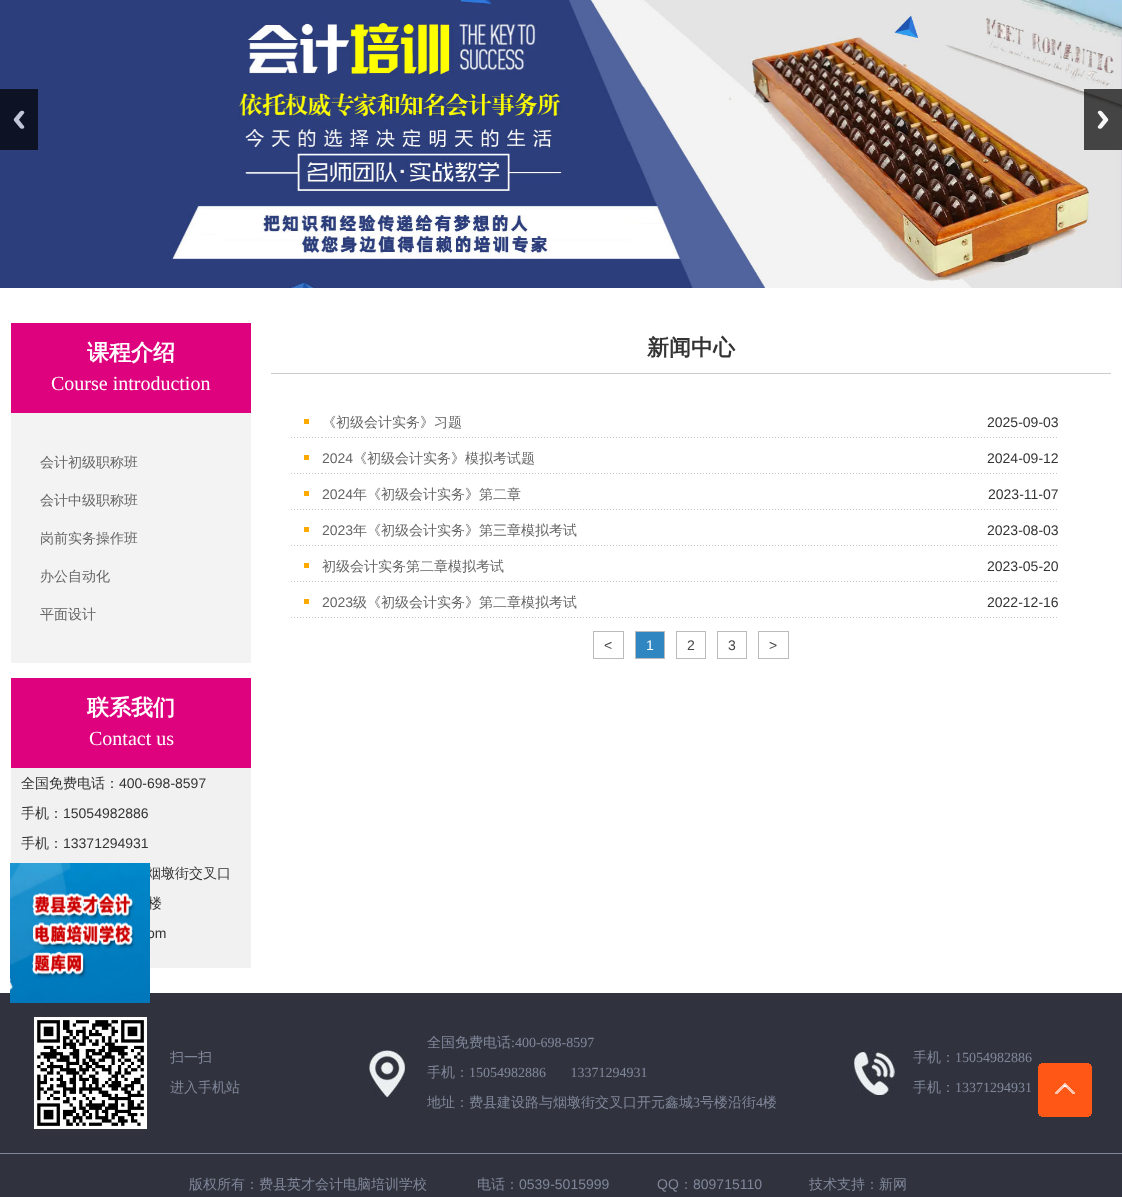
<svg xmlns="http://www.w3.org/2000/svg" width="1122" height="1197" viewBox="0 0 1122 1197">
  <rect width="100%" height="100%" fill="rgb(255,255,255)"/>
  <image x="0" y="0" width="1122" height="288" href="pic1.png"/>
  <image x="0" y="89" width="38" height="61" href="pic2.png"/>
  <image x="1084" y="89" width="38" height="61" href="pic3.png"/>
  <rect x="11" y="323" width="240" height="90" fill="rgb(222,2,126)"/>
  <text x="87" y="360" font-family="WenQuanYi Zen Hei" font-size="22" font-weight="bold" fill="rgb(255,255,255)">课程介绍</text>
  <text x="51" y="390" font-family="Liberation Serif" font-size="20" fill="rgb(255,255,255)">Course introduction</text>
  <rect x="11" y="413" width="240" height="250" fill="rgb(243,243,243)"/>
  <g font-family="WenQuanYi Zen Hei" font-size="14" font-weight="500" fill="rgb(102,102,102)">
    <text x="40" y="467">会计初级职称班</text>
    <text x="40" y="505">会计中级职称班</text>
    <text x="40" y="543">岗前实务操作班</text>
    <text x="40" y="581">办公自动化</text>
    <text x="40" y="619">平面设计</text>
  </g>
  <rect x="11" y="678" width="240" height="90" fill="rgb(222,2,126)"/>
  <text x="87" y="715" font-family="WenQuanYi Zen Hei" font-size="22" font-weight="bold" fill="rgb(255,255,255)">联系我们</text>
  <text x="89" y="745" font-family="Liberation Serif" font-size="20" fill="rgb(255,255,255)">Contact us</text>
  <rect x="11" y="768" width="240" height="200" fill="rgb(241,241,241)"/>
  <text x="21" y="788" font-family="WenQuanYi Zen Hei" font-size="14" font-weight="500" fill="rgb(51,51,51)">全国免费电话：</text>
  <text x="119" y="788" font-family="Liberation Sans" font-size="14" fill="rgb(51,51,51)">400-698-8597</text>
  <text x="21" y="818" font-family="WenQuanYi Zen Hei" font-size="14" font-weight="500" fill="rgb(51,51,51)">手机：</text>
  <text x="63" y="818" font-family="Liberation Sans" font-size="14" fill="rgb(51,51,51)">15054982886</text>
  <text x="21" y="848" font-family="WenQuanYi Zen Hei" font-size="14" font-weight="500" fill="rgb(51,51,51)">手机：</text>
  <text x="63" y="848" font-family="Liberation Sans" font-size="14" fill="rgb(51,51,51)">13371294931</text>
  <g font-family="WenQuanYi Zen Hei" font-size="14" font-weight="500" fill="rgb(51,51,51)">
    <text x="147" y="878">烟墩街交叉口</text>
    <text x="148" y="908">楼</text>
  </g>
  <text x="147" y="938" font-family="Liberation Sans" font-size="14" fill="rgb(51,51,51)">om</text>
  <rect x="271" y="373" width="840" height="1" fill="rgb(204,204,204)"/>
  <text x="647" y="355" font-family="WenQuanYi Zen Hei" font-size="22" font-weight="bold" fill="rgb(51,51,51)">新闻中心</text>
  <image x="291" y="437" width="31" height="1" href="pic4.png"/>
  <rect x="304" y="419" width="5" height="5" fill="rgb(255,170,0)"/>
  <image x="322" y="437" width="652" height="1" href="pic5.png"/>
  <text x="322" y="427" font-family="WenQuanYi Zen Hei" font-size="14" font-weight="500" fill="rgb(102,102,102)">《初级会计实务》习题</text>
  <image x="975" y="437" width="82" height="1" href="pic6.png"/>
  <text x="987" y="427" font-family="Liberation Sans" font-size="14" fill="rgb(51,51,51)">2025-09-03</text>
  <image x="291" y="473" width="31" height="1" href="pic4.png"/>
  <rect x="304" y="455" width="5" height="5" fill="rgb(255,170,0)"/>
  <image x="322" y="473" width="652" height="1" href="pic5.png"/>
  <text x="322" y="463" font-family="Liberation Sans" font-size="14" fill="rgb(102,102,102)">2024</text>
  <text x="353" y="463" font-family="WenQuanYi Zen Hei" font-size="14" font-weight="500" fill="rgb(102,102,102)">《初级会计实务》模拟考试题</text>
  <image x="975" y="473" width="82" height="1" href="pic6.png"/>
  <text x="987" y="463" font-family="Liberation Sans" font-size="14" fill="rgb(51,51,51)">2024-09-12</text>
  <image x="291" y="509" width="31" height="1" href="pic4.png"/>
  <rect x="304" y="491" width="5" height="5" fill="rgb(255,170,0)"/>
  <image x="322" y="509" width="652" height="1" href="pic5.png"/>
  <text x="322" y="499" font-family="Liberation Sans" font-size="14" fill="rgb(102,102,102)">2024</text>
  <text x="353" y="499" font-family="WenQuanYi Zen Hei" font-size="14" font-weight="500" fill="rgb(102,102,102)">年《初级会计实务》第二章</text>
  <image x="975" y="509" width="82" height="1" href="pic6.png"/>
  <text x="988" y="499" font-family="Liberation Sans" font-size="14" fill="rgb(51,51,51)">2023-11-07</text>
  <image x="291" y="545" width="31" height="1" href="pic4.png"/>
  <rect x="304" y="527" width="5" height="5" fill="rgb(255,170,0)"/>
  <image x="322" y="545" width="652" height="1" href="pic5.png"/>
  <text x="322" y="535" font-family="Liberation Sans" font-size="14" fill="rgb(102,102,102)">2023</text>
  <text x="353" y="535" font-family="WenQuanYi Zen Hei" font-size="14" font-weight="500" fill="rgb(102,102,102)">年《初级会计实务》第三章模拟考试</text>
  <image x="975" y="545" width="82" height="1" href="pic6.png"/>
  <text x="987" y="535" font-family="Liberation Sans" font-size="14" fill="rgb(51,51,51)">2023-08-03</text>
  <image x="291" y="581" width="31" height="1" href="pic4.png"/>
  <rect x="304" y="563" width="5" height="5" fill="rgb(255,170,0)"/>
  <image x="322" y="581" width="652" height="1" href="pic5.png"/>
  <text x="322" y="571" font-family="WenQuanYi Zen Hei" font-size="14" font-weight="500" fill="rgb(102,102,102)">初级会计实务第二章模拟考试</text>
  <image x="975" y="581" width="82" height="1" href="pic6.png"/>
  <text x="987" y="571" font-family="Liberation Sans" font-size="14" fill="rgb(51,51,51)">2023-05-20</text>
  <image x="291" y="617" width="31" height="1" href="pic4.png"/>
  <rect x="304" y="599" width="5" height="5" fill="rgb(255,170,0)"/>
  <image x="322" y="617" width="652" height="1" href="pic5.png"/>
  <text x="322" y="607" font-family="Liberation Sans" font-size="14" fill="rgb(102,102,102)">2023</text>
  <text x="353" y="607" font-family="WenQuanYi Zen Hei" font-size="14" font-weight="500" fill="rgb(102,102,102)">级《初级会计实务》第二章模拟考试</text>
  <image x="975" y="617" width="82" height="1" href="pic6.png"/>
  <text x="987" y="607" font-family="Liberation Sans" font-size="14" fill="rgb(51,51,51)">2022-12-16</text>
  <rect x="593.5" y="631.5" width="30" height="27" fill="none" stroke="rgb(187,187,187)"/>
  <text x="604" y="650" font-family="Liberation Sans" font-size="14" fill="rgb(68,68,68)">&lt;</text>
  <rect x="635.5" y="631.5" width="29" height="27" fill="rgb(48,134,193)" stroke="rgb(187,187,187)"/>
  <text x="646" y="650" font-family="Liberation Sans" font-size="14" fill="rgb(255,255,255)">1</text>
  <rect x="676.5" y="631.5" width="29" height="27" fill="none" stroke="rgb(187,187,187)"/>
  <text x="687" y="650" font-family="Liberation Sans" font-size="14" fill="rgb(68,68,68)">2</text>
  <rect x="717.5" y="631.5" width="29" height="27" fill="none" stroke="rgb(187,187,187)"/>
  <text x="728" y="650" font-family="Liberation Sans" font-size="14" fill="rgb(68,68,68)">3</text>
  <rect x="758.5" y="631.5" width="30" height="27" fill="none" stroke="rgb(187,187,187)"/>
  <text x="769" y="650" font-family="Liberation Sans" font-size="14" fill="rgb(68,68,68)">&gt;</text>
  <rect x="0" y="993" width="1122" height="160" fill="rgb(48,51,61)"/>
  <image x="10" y="863" width="140" height="140" href="pic7.png"/>
  <image x="34" y="1017" width="113" height="112" href="pic8.png"/>
  <g font-family="WenQuanYi Zen Hei" font-size="14" font-weight="500" fill="rgb(129,135,155)">
    <text x="170" y="1062">扫一扫</text>
    <text x="170" y="1092">进入手机站</text>
  </g>
  <image x="368" y="1048" width="38" height="50" href="pic9.png"/>
  <text x="427" y="1047" font-family="WenQuanYi Zen Hei" font-size="14" font-weight="500" fill="rgb(129,135,155)">全国免费电话</text>
  <text x="511" y="1047" font-family="Liberation Serif" font-size="14" fill="rgb(129,135,155)">:400-698-8597</text>
  <text x="427" y="1077" font-family="WenQuanYi Zen Hei" font-size="14" font-weight="500" fill="rgb(129,135,155)">手机：</text>
  <text x="469" y="1077" font-family="Liberation Serif" font-size="14" fill="rgb(129,135,155)" xml:space="preserve">15054982886       13371294931</text>
  <text x="427" y="1107" font-family="WenQuanYi Zen Hei" font-size="14" font-weight="500" fill="rgb(129,135,155)">地址：费县建设路与烟墩街交叉口开元鑫城</text>
  <text x="693" y="1107" font-family="Liberation Serif" font-size="14" fill="rgb(129,135,155)">3</text>
  <text x="700" y="1107" font-family="WenQuanYi Zen Hei" font-size="14" font-weight="500" fill="rgb(129,135,155)">号楼沿街</text>
  <text x="756" y="1107" font-family="Liberation Serif" font-size="14" fill="rgb(129,135,155)">4</text>
  <text x="763" y="1107" font-family="WenQuanYi Zen Hei" font-size="14" font-weight="500" fill="rgb(129,135,155)">楼</text>
  <image x="853" y="1048" width="42" height="48" href="pic10.png"/>
  <text x="913" y="1062" font-family="WenQuanYi Zen Hei" font-size="14" font-weight="500" fill="rgb(129,135,155)">手机：</text>
  <text x="955" y="1062" font-family="Liberation Serif" font-size="14" fill="rgb(129,135,155)">15054982886</text>
  <text x="913" y="1092" font-family="WenQuanYi Zen Hei" font-size="14" font-weight="500" fill="rgb(129,135,155)">手机：</text>
  <text x="955" y="1092" font-family="Liberation Serif" font-size="14" fill="rgb(129,135,155)">13371294931</text>
  <image x="1038" y="1063" width="54" height="54" href="pic11.png"/>
  <rect x="0" y="1153" width="1122" height="1" fill="rgb(129,135,155)"/>
  <rect x="0" y="1154" width="1122" height="43" fill="rgb(48,51,61)"/>
  <g font-family="WenQuanYi Zen Hei" font-size="14" font-weight="500" fill="rgb(129,135,155)">
    <text x="189" y="1189">版权所有：费县英才会计电脑培训学校</text>
    <text x="477" y="1189">电话：</text>
  </g>
  <g font-family="Liberation Sans" font-size="14" fill="rgb(129,135,155)">
    <text x="519" y="1189">0539-5015999</text>
    <text x="657" y="1189">QQ</text>
  </g>
  <text x="679" y="1189" font-family="WenQuanYi Zen Hei" font-size="14" font-weight="500" fill="rgb(129,135,155)">：</text>
  <text x="693" y="1189" font-family="Liberation Sans" font-size="14" fill="rgb(129,135,155)">809715110</text>
  <text x="809" y="1189" font-family="WenQuanYi Zen Hei" font-size="14" font-weight="500" fill="rgb(129,135,155)">技术支持：新网</text>
</svg>
